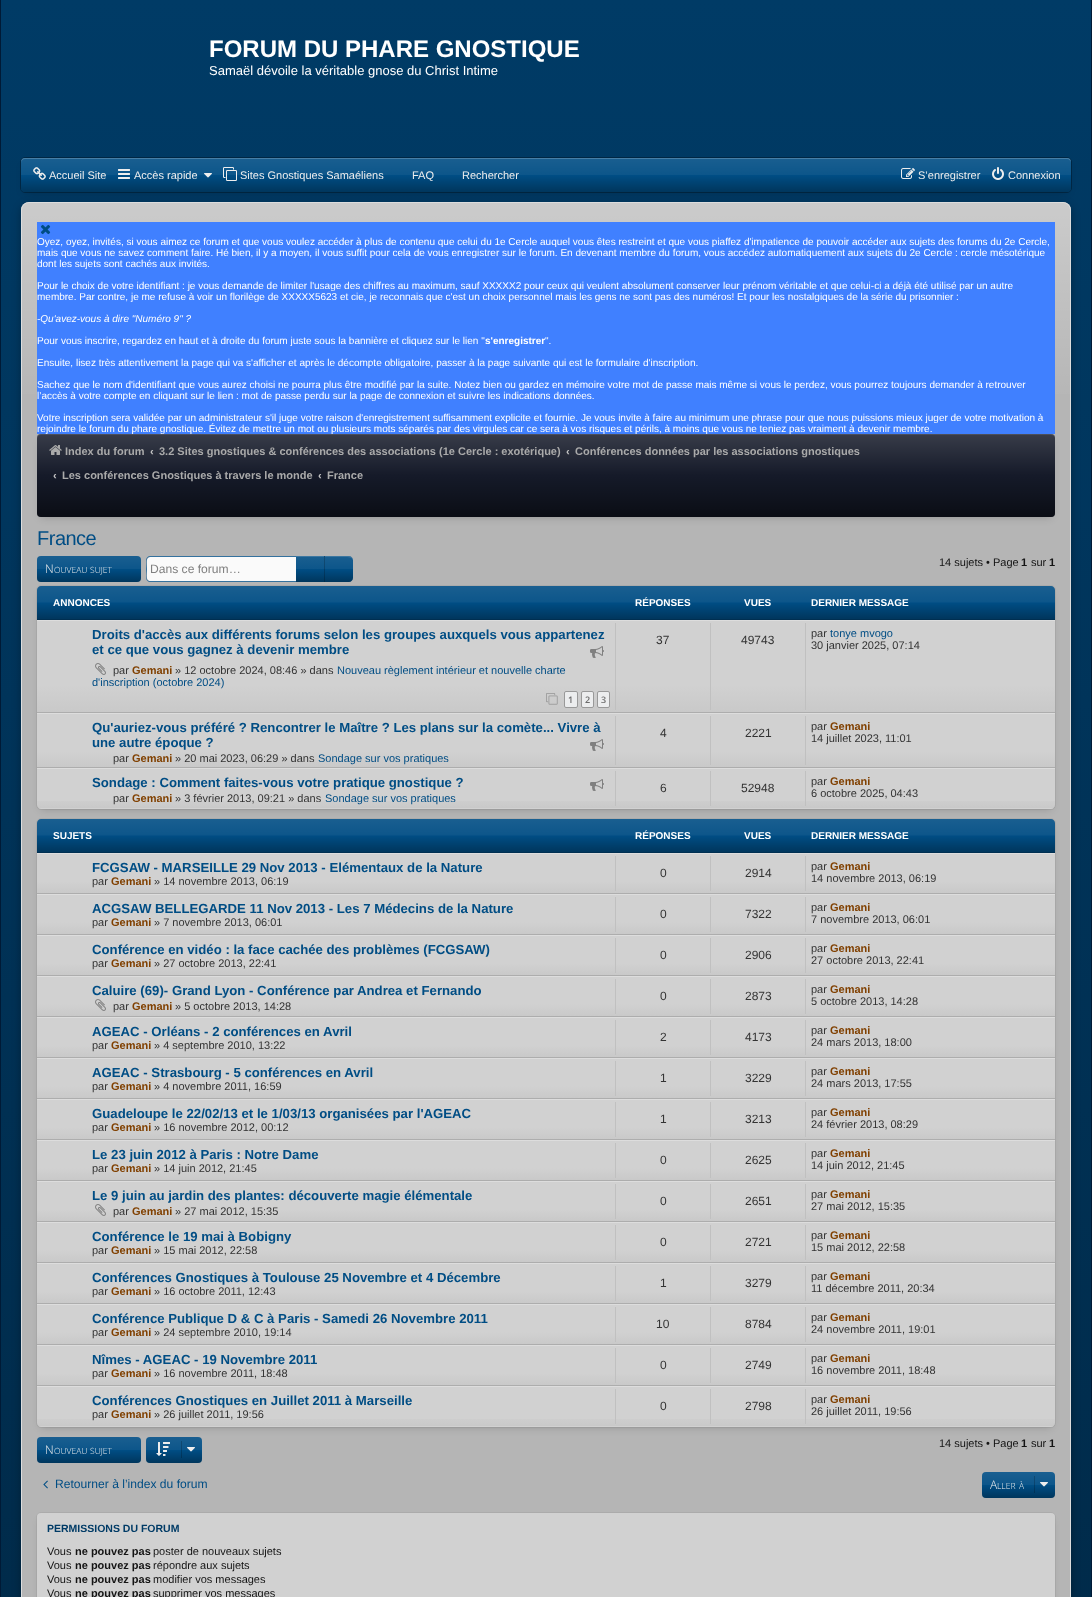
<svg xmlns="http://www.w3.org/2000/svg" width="1092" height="1597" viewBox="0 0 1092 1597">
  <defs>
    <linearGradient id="g1" gradientUnits="userSpaceOnUse" x1="546" y1="0" x2="546" y2="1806"><stop offset="0" stop-color="rgb(0,59,102)"/><stop offset="1" stop-color="rgb(0,41,71)"/></linearGradient>
    <linearGradient id="g2" gradientUnits="userSpaceOnUse" x1="546" y1="158" x2="546" y2="192"><stop offset="0" stop-color="rgb(255,255,255)" stop-opacity="0.1"/><stop offset="0.49" stop-color="rgb(255,255,255)" stop-opacity="0.05"/><stop offset="0.51" stop-color="rgb(255,255,255)" stop-opacity="0"/><stop offset="0.51" stop-color="rgb(0,0,0)" stop-opacity="0"/><stop offset="1" stop-color="rgb(0,0,0)" stop-opacity="0.3"/></linearGradient>
    <clipPath id="clip1"><rect x="21" y="202" width="1050" height="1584" rx="8"/></clipPath>
    <linearGradient id="g3" gradientUnits="userSpaceOnUse" x1="546" y1="203" x2="546" y2="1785"><stop offset="0" stop-color="rgb(255,255,255)" stop-opacity="0.3"/><stop offset="0.13" stop-color="rgb(255,255,255)" stop-opacity="0"/></linearGradient>
    <linearGradient id="g4" gradientUnits="userSpaceOnUse" x1="546" y1="434" x2="546" y2="517"><stop offset="0" stop-color="rgb(255,255,255)" stop-opacity="0.15"/><stop offset="0.5" stop-color="rgb(255,255,255)" stop-opacity="0"/><stop offset="0.5" stop-color="rgb(0,0,0)" stop-opacity="0"/><stop offset="1" stop-color="rgb(0,0,0)" stop-opacity="0.5"/></linearGradient>
    <linearGradient id="g5" gradientUnits="userSpaceOnUse" x1="89" y1="556" x2="89" y2="582"><stop offset="0" stop-color="rgb(255,255,255)" stop-opacity="0.1"/><stop offset="0.49" stop-color="rgb(255,255,255)" stop-opacity="0.05"/><stop offset="0.51" stop-color="rgb(255,255,255)" stop-opacity="0"/><stop offset="0.51" stop-color="rgb(0,0,0)" stop-opacity="0"/><stop offset="1" stop-color="rgb(0,0,0)" stop-opacity="0.3"/></linearGradient>
    <linearGradient id="g6" gradientUnits="userSpaceOnUse" x1="310" y1="556" x2="310" y2="582"><stop offset="0" stop-color="rgb(26,95,144)"/><stop offset="0.49" stop-color="rgb(13,86,138)"/><stop offset="0.51" stop-color="rgb(0,77,132)"/><stop offset="1" stop-color="rgb(0,54,92)"/></linearGradient>
    <linearGradient id="g7" gradientUnits="userSpaceOnUse" x1="339" y1="556" x2="339" y2="582"><stop offset="0" stop-color="rgb(255,255,255)" stop-opacity="0.1"/><stop offset="0.49" stop-color="rgb(255,255,255)" stop-opacity="0.05"/><stop offset="0.51" stop-color="rgb(255,255,255)" stop-opacity="0"/><stop offset="0.51" stop-color="rgb(0,0,0)" stop-opacity="0"/><stop offset="1" stop-color="rgb(0,0,0)" stop-opacity="0.3"/></linearGradient>
    <linearGradient id="g8" gradientUnits="userSpaceOnUse" x1="546" y1="586" x2="546" y2="619"><stop offset="0" stop-color="rgb(255,255,255)" stop-opacity="0.1"/><stop offset="0.49" stop-color="rgb(255,255,255)" stop-opacity="0.05"/><stop offset="0.51" stop-color="rgb(255,255,255)" stop-opacity="0"/><stop offset="0.51" stop-color="rgb(0,0,0)" stop-opacity="0"/><stop offset="1" stop-color="rgb(0,0,0)" stop-opacity="0.3"/></linearGradient>
    <linearGradient id="g9" gradientUnits="userSpaceOnUse" x1="546" y1="621" x2="546" y2="712"><stop offset="0.7" stop-color="rgb(209,209,209)"/><stop offset="1" stop-color="rgb(201,201,201)"/></linearGradient>
    <linearGradient id="g10" gradientUnits="userSpaceOnUse" x1="546" y1="714" x2="546" y2="767"><stop offset="0.7" stop-color="rgb(209,209,209)"/><stop offset="1" stop-color="rgb(201,201,201)"/></linearGradient>
    <linearGradient id="g11" gradientUnits="userSpaceOnUse" x1="546" y1="769" x2="546" y2="808"><stop offset="0.7" stop-color="rgb(128,128,128)" stop-opacity="0"/><stop offset="1" stop-color="rgb(128,128,128)" stop-opacity="0.1"/></linearGradient>
    <linearGradient id="g12" gradientUnits="userSpaceOnUse" x1="546" y1="819" x2="546" y2="852"><stop offset="0" stop-color="rgb(255,255,255)" stop-opacity="0.1"/><stop offset="0.49" stop-color="rgb(255,255,255)" stop-opacity="0.05"/><stop offset="0.51" stop-color="rgb(255,255,255)" stop-opacity="0"/><stop offset="0.51" stop-color="rgb(0,0,0)" stop-opacity="0"/><stop offset="1" stop-color="rgb(0,0,0)" stop-opacity="0.3"/></linearGradient>
    <linearGradient id="g13" gradientUnits="userSpaceOnUse" x1="546" y1="854" x2="546" y2="893"><stop offset="0.7" stop-color="rgb(209,209,209)"/><stop offset="1" stop-color="rgb(201,201,201)"/></linearGradient>
    <linearGradient id="g14" gradientUnits="userSpaceOnUse" x1="546" y1="895" x2="546" y2="934"><stop offset="0.7" stop-color="rgb(209,209,209)"/><stop offset="1" stop-color="rgb(201,201,201)"/></linearGradient>
    <linearGradient id="g15" gradientUnits="userSpaceOnUse" x1="546" y1="936" x2="546" y2="975"><stop offset="0.7" stop-color="rgb(209,209,209)"/><stop offset="1" stop-color="rgb(201,201,201)"/></linearGradient>
    <linearGradient id="g16" gradientUnits="userSpaceOnUse" x1="546" y1="977" x2="546" y2="1016"><stop offset="0.7" stop-color="rgb(209,209,209)"/><stop offset="1" stop-color="rgb(201,201,201)"/></linearGradient>
    <linearGradient id="g17" gradientUnits="userSpaceOnUse" x1="546" y1="1018" x2="546" y2="1057"><stop offset="0.7" stop-color="rgb(209,209,209)"/><stop offset="1" stop-color="rgb(201,201,201)"/></linearGradient>
    <linearGradient id="g18" gradientUnits="userSpaceOnUse" x1="546" y1="1059" x2="546" y2="1098"><stop offset="0.7" stop-color="rgb(209,209,209)"/><stop offset="1" stop-color="rgb(201,201,201)"/></linearGradient>
    <linearGradient id="g19" gradientUnits="userSpaceOnUse" x1="546" y1="1100" x2="546" y2="1139"><stop offset="0.7" stop-color="rgb(209,209,209)"/><stop offset="1" stop-color="rgb(201,201,201)"/></linearGradient>
    <linearGradient id="g20" gradientUnits="userSpaceOnUse" x1="546" y1="1141" x2="546" y2="1180"><stop offset="0.7" stop-color="rgb(209,209,209)"/><stop offset="1" stop-color="rgb(201,201,201)"/></linearGradient>
    <linearGradient id="g21" gradientUnits="userSpaceOnUse" x1="546" y1="1182" x2="546" y2="1221"><stop offset="0.7" stop-color="rgb(209,209,209)"/><stop offset="1" stop-color="rgb(201,201,201)"/></linearGradient>
    <linearGradient id="g22" gradientUnits="userSpaceOnUse" x1="546" y1="1223" x2="546" y2="1262"><stop offset="0.7" stop-color="rgb(209,209,209)"/><stop offset="1" stop-color="rgb(201,201,201)"/></linearGradient>
    <linearGradient id="g23" gradientUnits="userSpaceOnUse" x1="546" y1="1264" x2="546" y2="1303"><stop offset="0.7" stop-color="rgb(209,209,209)"/><stop offset="1" stop-color="rgb(201,201,201)"/></linearGradient>
    <linearGradient id="g24" gradientUnits="userSpaceOnUse" x1="546" y1="1305" x2="546" y2="1344"><stop offset="0.7" stop-color="rgb(209,209,209)"/><stop offset="1" stop-color="rgb(201,201,201)"/></linearGradient>
    <linearGradient id="g25" gradientUnits="userSpaceOnUse" x1="546" y1="1346" x2="546" y2="1385"><stop offset="0.7" stop-color="rgb(209,209,209)"/><stop offset="1" stop-color="rgb(201,201,201)"/></linearGradient>
    <linearGradient id="g26" gradientUnits="userSpaceOnUse" x1="546" y1="1387" x2="546" y2="1426"><stop offset="0.7" stop-color="rgb(128,128,128)" stop-opacity="0"/><stop offset="1" stop-color="rgb(128,128,128)" stop-opacity="0.1"/></linearGradient>
    <linearGradient id="g27" gradientUnits="userSpaceOnUse" x1="89" y1="1437" x2="89" y2="1463"><stop offset="0" stop-color="rgb(255,255,255)" stop-opacity="0.1"/><stop offset="0.49" stop-color="rgb(255,255,255)" stop-opacity="0.05"/><stop offset="0.51" stop-color="rgb(255,255,255)" stop-opacity="0"/><stop offset="0.51" stop-color="rgb(0,0,0)" stop-opacity="0"/><stop offset="1" stop-color="rgb(0,0,0)" stop-opacity="0.3"/></linearGradient>
    <linearGradient id="g28" gradientUnits="userSpaceOnUse" x1="174" y1="1437" x2="174" y2="1463"><stop offset="0" stop-color="rgb(255,255,255)" stop-opacity="0.1"/><stop offset="0.49" stop-color="rgb(255,255,255)" stop-opacity="0.05"/><stop offset="0.51" stop-color="rgb(255,255,255)" stop-opacity="0"/><stop offset="0.51" stop-color="rgb(0,0,0)" stop-opacity="0"/><stop offset="1" stop-color="rgb(0,0,0)" stop-opacity="0.3"/></linearGradient>
    <linearGradient id="g29" gradientUnits="userSpaceOnUse" x1="1019" y1="1472" x2="1019" y2="1498"><stop offset="0" stop-color="rgb(255,255,255)" stop-opacity="0.1"/><stop offset="0.49" stop-color="rgb(255,255,255)" stop-opacity="0.05"/><stop offset="0.51" stop-color="rgb(255,255,255)" stop-opacity="0"/><stop offset="0.51" stop-color="rgb(0,0,0)" stop-opacity="0"/><stop offset="1" stop-color="rgb(0,0,0)" stop-opacity="0.3"/></linearGradient>
  </defs>
  <rect width="100%" height="100%" fill="rgb(0,26,54)"/>
  <rect x="1" y="0" width="1090" height="1597" fill="url(#g1)"/>
  <text x="209" y="57" font-family="Liberation Sans" font-size="24" font-weight="bold" fill="rgb(255,255,255)">FORUM DU PHARE GNOSTIQUE</text>
  <text x="209" y="75" font-family="Liberation Sans" font-size="13" fill="rgb(255,255,255)">Samaël dévoile la véritable gnose du Christ Intime</text>
  <rect x="20.5" y="157.5" width="1051" height="35" rx="4.5" fill="none" stroke="rgb(0,40,69)"/>
  <rect x="25" y="166" width="1042" height="26" fill="rgba(0,0,0,0.2)" filter="blur(4px)"/>
  <rect x="21" y="158" width="1050" height="34" rx="4" fill="rgb(0,77,132)"/>
  <rect x="21" y="158" width="1050" height="34" rx="4" fill="url(#g2)"/>
  <path d="M25 159H1067C1069 159 1071 161 1071 163C1071 160 1070 158 1067 158H25C22 158 21 160 21 163C21 161 23 159 25 159Z" fill="rgba(255,255,255,0.2)"/>
  <image x="33" y="167" width="13" height="13" href="pic1.png"/>
  <text x="49" y="179" font-family="Liberation Sans" font-size="11" fill="rgb(238,238,238)">Accueil Site</text>
  <image x="118" y="169" width="12" height="10" href="pic2.png"/>
  <text x="134" y="179" font-family="Liberation Sans" font-size="11" fill="rgb(238,238,238)">Accès rapide</text>
  <image x="204" y="173" width="8" height="5" href="pic3.png"/>
  <image x="223" y="167" width="14" height="14" href="pic4.png"/>
  <g font-family="Liberation Sans" font-size="11" fill="rgb(238,238,238)">
    <text x="240" y="179">Sites Gnostiques Samaéliens</text>
    <text x="412" y="179">FAQ</text>
    <text x="462" y="179">Rechercher</text>
  </g>
  <image x="901" y="168" width="14" height="11" href="pic5.png"/>
  <text x="918" y="179" font-family="Liberation Sans" font-size="11" fill="rgb(238,238,238)">S’enregistrer</text>
  <image x="992" y="167" width="12" height="13" href="pic6.png"/>
  <text x="1008" y="179" font-family="Liberation Sans" font-size="11" fill="rgb(238,238,238)">Connexion</text>
  <rect x="21" y="205" width="1050" height="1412" rx="8" fill="rgba(0,0,0,0.3)" filter="blur(4px)"/>
  <rect x="21" y="202" width="1050" height="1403" rx="8" fill="rgb(181,181,181)"/>
  <g clip-path="url(#clip1)">
    <rect x="21" y="203" width="1050" height="191" fill="url(#g3)"/>
  </g>
  <rect x="21.5" y="202.5" width="1049" height="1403" rx="7.5" fill="none" stroke="rgb(221,221,221)"/>
  <rect x="37" y="222" width="1018" height="212" fill="rgb(64,128,255)"/>
  <image x="40" y="224" width="11" height="11" href="pic7.png"/>
  <g font-family="Liberation Sans" font-size="10" fill="rgb(255,255,255)">
    <text>
      <tspan x="37" y="245">Oyez, oyez, invités, si vous aimez ce forum et que vous voulez accéder à plus de contenu que celui du 1e Cercle auquel vous êtes restreint et que vous piaffez d'impatience de pouvoir accéder aux sujets des forums du 2e Cercle,</tspan>
      <tspan x="37" y="256">mais que vous ne savez comment faire. Hé bien, il y a moyen, il vous suffit pour cela de vous enregistrer sur le forum. En devenant membre du forum, vous accédez automatiquement aux sujets du 2e Cercle : cercle mésotérique</tspan>
      <tspan x="37" y="267">dont les sujets sont cachés aux invités.</tspan>
    </text>
    <text>
      <tspan x="37" y="289">Pour le choix de votre identifiant : je vous demande de limiter l'usage des chiffres au maximum, sauf XXXXX2 pour ceux qui veulent absolument conserver leur prénom véritable et que celui-ci a déjà été utilisé par un autre</tspan>
      <tspan x="37" y="300">membre. Par contre, je me refuse à voir un florilège de XXXXX5623 et cie, je reconnais que c'est un choix personnel mais les gens ne sont pas des numéros! Et pour les nostalgiques de la série du prisonnier :</tspan>
    </text>
  </g>
  <text x="37" y="322" font-family="Liberation Sans" font-size="10" font-style="italic" fill="rgb(255,255,255)">-Qu'avez-vous à dire "Numéro 9" ?</text>
  <text x="37" y="344" font-family="Liberation Sans" font-size="10" fill="rgb(255,255,255)">Pour vous inscrire, regardez en haut et à droite du forum juste sous la bannière et cliquez sur le lien "</text>
  <text x="485" y="344" font-family="Liberation Sans" font-size="10" font-weight="bold" fill="rgb(255,255,255)">s'enregistrer</text>
  <g font-family="Liberation Sans" font-size="10" fill="rgb(255,255,255)">
    <text x="545" y="344">".</text>
    <text x="37" y="366">Ensuite, lisez très attentivement la page qui va s'afficher et après le décompte obligatoire, passer à la page suivante qui est le formulaire d'inscription.</text>
    <text>
      <tspan x="37" y="388">Sachez que le nom d'identifiant que vous aurez choisi ne pourra plus être modifié par la suite. Notez bien ou gardez en mémoire votre mot de passe mais même si vous le perdez, vous pourrez toujours demander à retrouver</tspan>
      <tspan x="37" y="399">l’accès à votre compte en cliquant sur le lien : mot de passe perdu sur la page de connexion et suivre les indications données.</tspan>
    </text>
    <text x="37" y="421">Votre inscription sera validée par un administrateur s'il juge votre raison d'enregistrement suffisamment explicite et fournie. Je vous invite à faire au minimum une phrase pour que nous puissions mieux juger de votre motivation à</text>
  </g>
  <rect x="41" y="442" width="1010" height="75" fill="rgba(0,0,0,0.2)" filter="blur(4px)"/>
  <rect x="37" y="434" width="1018" height="83" rx="4" fill="rgb(21,26,41)"/>
  <rect x="37" y="434" width="1018" height="83" rx="4" fill="url(#g4)"/>
  <path d="M41 435H1051C1053 435 1055 437 1055 439C1055 436 1054 434 1051 434H41C38 434 37 436 37 439C37 437 39 435 41 435Z" fill="rgba(255,255,255,0.1)"/>
  <text x="37" y="432" font-family="Liberation Sans" font-size="10" fill="rgb(255,255,255)">rejoindre le forum du phare gnostique. Évitez de mettre un mot ou plusieurs mots séparés par des virgules car ce sera à vos risques et périls, à moins que vous ne teniez pas vraiment à devenir membre.</text>
  <image x="49" y="445" width="13" height="10" href="pic8.png"/>
  <text x="65" y="455" font-family="Liberation Sans" font-size="11" font-weight="bold" fill="rgb(170,170,170)">Index du forum</text>
  <text x="150" y="455" font-family="Liberation Sans" font-size="11" font-weight="bold" fill="rgb(200,200,200)">‹</text>
  <text x="159" y="455" font-family="Liberation Sans" font-size="11" font-weight="bold" fill="rgb(170,170,170)">3.2 Sites gnostiques &amp; conférences des associations (1e Cercle : exotérique)</text>
  <text x="566" y="455" font-family="Liberation Sans" font-size="11" font-weight="bold" fill="rgb(200,200,200)">‹</text>
  <text x="575" y="455" font-family="Liberation Sans" font-size="11" font-weight="bold" fill="rgb(170,170,170)">Conférences données par les associations gnostiques</text>
  <text x="53" y="479" font-family="Liberation Sans" font-size="11" font-weight="bold" fill="rgb(200,200,200)">‹</text>
  <text x="62" y="479" font-family="Liberation Sans" font-size="11" font-weight="bold" fill="rgb(170,170,170)">Les conférences Gnostiques à travers le monde</text>
  <text x="318" y="479" font-family="Liberation Sans" font-size="11" font-weight="bold" fill="rgb(200,200,200)">‹</text>
  <text x="327" y="479" font-family="Liberation Sans" font-size="11" font-weight="bold" fill="rgb(170,170,170)">France</text>
  <text x="37" y="545" font-family="Liberation Sans" font-size="20" letter-spacing="-0.5" fill="rgb(0,77,132)">France</text>
  <rect x="36.5" y="585.5" width="1019" height="224" rx="4.5" fill="none" stroke="rgb(172,172,172)"/>
  <rect x="41" y="594" width="1010" height="215" fill="rgba(0,0,0,0.2)" filter="blur(4px)"/>
  <rect x="37" y="556" width="104" height="26" rx="4" fill="rgb(0,77,132)"/>
  <rect x="37" y="556" width="104" height="26" rx="4" fill="url(#g5)"/>
  <text x="45" y="573" font-family="Open Sans" font-size="12" font-weight="300" fill="rgb(238,238,238)">N</text>
  <g font-family="Open Sans" font-size="8.5" font-weight="300" fill="rgb(238,238,238)">
    <text x="54" y="573">OUVEAU</text>
    <text x="90" y="573">SUJET</text>
  </g>
  <path d="M150 557H296V581H150C148.5 581 147 579.5 147 578V560C147 558.5 148.5 557 150 557Z" fill="rgb(250,250,250)"/>
  <path d="M150 556H296V582H150C148 582 146 580 146 578V560C146 558 148 556 150 556ZM150 557H296V581H149C145 580 147 572 147 569C147 566 145 557 150 557Z" fill="rgb(52,113,158)" fill-rule="evenodd"/>
  <text x="150" y="573" font-family="Liberation Sans" font-size="12.1" fill="rgb(128,128,128)">Dans ce forum…</text>
  <rect x="296" y="556" width="29" height="26" fill="url(#g6)"/>
  <rect x="296" y="556" width="28" height="1" fill="rgb(60,119,161)"/>
  <rect x="324" y="556" width="1" height="26" fill="rgba(0,0,0,0.2)"/>
  <path d="M325 556H349C351 556 353 558 353 560V578C353 580 351 582 349 582H325Z" fill="rgb(0,77,132)"/>
  <path d="M325 556H349C351 556 353 558 353 560V578C353 580 351 582 349 582H325Z" fill="url(#g7)"/>
  <path d="M325 557H345C350.5 557 352.5 558 353 560.5V560C353 558 351 556 349 556H325Z" fill="rgba(255,255,255,0.15)"/>
  <text x="939" y="566" font-family="Liberation Sans" font-size="11" fill="rgb(20,20,20)">14 sujets • Page</text>
  <text x="1021" y="566" font-family="Liberation Sans" font-size="11" font-weight="bold" fill="rgb(20,20,20)">1</text>
  <text x="1031" y="566" font-family="Liberation Sans" font-size="11" fill="rgb(20,20,20)">sur</text>
  <text x="1049" y="566" font-family="Liberation Sans" font-size="11" font-weight="bold" fill="rgb(20,20,20)">1</text>
  <path d="M41 586H1051C1053 586 1055 588 1055 590V620H37V590C37 588 39 586 41 586Z" fill="rgb(0,77,132)"/>
  <path d="M41 586H1051C1053 586 1055 588 1055 590V619H37V590C37 588 39 586 41 586Z" fill="url(#g8)"/>
  <rect x="37" y="619" width="1018" height="1" fill="rgb(0,47,81)"/>
  <g font-family="Liberation Sans" font-size="10" font-weight="bold" fill="rgb(255,255,255)">
    <text x="53" y="606">ANNONCES</text>
    <text x="635" y="606">RÉPONSES</text>
    <text x="744" y="606">VUES</text>
    <text x="811" y="606">DERNIER MESSAGE</text>
  </g>
  <rect x="37" y="620" width="1018" height="1" fill="rgb(221,221,221)"/>
  <rect x="37" y="621" width="1018" height="91" fill="url(#g9)"/>
  <rect x="37" y="712" width="1018" height="1" fill="rgb(173,173,173)"/>
  <g font-family="Liberation Sans" font-size="13.2" font-weight="bold" fill="rgb(0,77,132)">
    <text>
      <tspan x="92" y="639">Droits d'accès aux différents forums selon les groupes auxquels vous appartenez</tspan>
      <tspan x="92" y="654">et ce que vous gagnez à devenir membre</tspan>
    </text>
  </g>
  <image x="590" y="646" width="14" height="12" href="pic9.png"/>
  <image x="95" y="663" width="11" height="12" href="pic10.png"/>
  <text x="113" y="674" font-family="Liberation Sans" font-size="11" fill="rgb(51,51,51)">par</text>
  <text x="132" y="674" font-family="Liberation Sans" font-size="11" font-weight="bold" fill="rgb(128,64,0)">Gemani</text>
  <text x="175" y="674" font-family="Liberation Sans" font-size="11" fill="rgb(51,51,51)">» 12 octobre 2024, 08:46 » dans</text>
  <g font-family="Liberation Sans" font-size="11" fill="rgb(0,77,132)">
    <text x="337" y="674">Nouveau règlement intérieur et nouvelle charte</text>
    <text x="92" y="686">d'inscription (octobre 2024)</text>
  </g>
  <image x="546" y="693" width="12" height="12" href="pic11.png"/>
  <rect x="564.5" y="691.5" width="13" height="16" rx="1.5" fill="rgb(236,237,238)" stroke="rgb(153,153,153)"/>
  <text x="568" y="703" font-family="Open Sans" font-size="9" font-weight="600" fill="rgb(107,107,107)">1</text>
  <rect x="581.5" y="691.5" width="12" height="16" rx="1.5" fill="rgb(236,237,238)" stroke="rgb(153,153,153)"/>
  <text x="585" y="703" font-family="Open Sans" font-size="9" font-weight="600" fill="rgb(107,107,107)">2</text>
  <rect x="597.5" y="691.5" width="12" height="16" rx="1.5" fill="rgb(236,237,238)" stroke="rgb(153,153,153)"/>
  <text x="601" y="703" font-family="Open Sans" font-size="9" font-weight="600" fill="rgb(107,107,107)">3</text>
  <rect x="615" y="623" width="1" height="87" fill="rgb(192,192,192)"/>
  <text x="656" y="644" font-family="Liberation Sans" font-size="12" fill="rgb(51,51,51)">37</text>
  <rect x="710" y="623" width="1" height="87" fill="rgb(192,192,192)"/>
  <text x="741" y="644" font-family="Liberation Sans" font-size="12" fill="rgb(51,51,51)">49743</text>
  <rect x="805" y="623" width="1" height="87" fill="rgb(192,192,192)"/>
  <text x="811" y="637" font-family="Liberation Sans" font-size="11" fill="rgb(51,51,51)">par</text>
  <text x="830" y="637" font-family="Liberation Sans" font-size="11" fill="rgb(0,77,132)">tonye mvogo</text>
  <text x="811" y="649" font-family="Liberation Sans" font-size="11" fill="rgb(51,51,51)">30 janvier 2025, 07:14</text>
  <rect x="37" y="714" width="1018" height="53" fill="url(#g10)"/>
  <rect x="37" y="713" width="1018" height="1" fill="rgb(221,221,221)"/>
  <rect x="37" y="767" width="1018" height="1" fill="rgb(173,173,173)"/>
  <g font-family="Liberation Sans" font-size="13.2" font-weight="bold" fill="rgb(0,77,132)">
    <text>
      <tspan x="92" y="732">Qu'auriez-vous préféré ? Rencontrer le Maître ? Les plans sur la comète... Vivre à</tspan>
      <tspan x="92" y="747">une autre époque ?</tspan>
    </text>
  </g>
  <image x="590" y="739" width="14" height="12" href="pic9.png"/>
  <text x="113" y="762" font-family="Liberation Sans" font-size="11" fill="rgb(51,51,51)">par</text>
  <text x="132" y="762" font-family="Liberation Sans" font-size="11" font-weight="bold" fill="rgb(128,64,0)">Gemani</text>
  <text x="175" y="762" font-family="Liberation Sans" font-size="11" fill="rgb(51,51,51)">» 20 mai 2023, 06:29 » dans</text>
  <text x="318" y="762" font-family="Liberation Sans" font-size="11" fill="rgb(0,77,132)">Sondage sur vos pratiques</text>
  <rect x="615" y="716" width="1" height="49" fill="rgb(192,192,192)"/>
  <text x="660" y="737" font-family="Liberation Sans" font-size="12" fill="rgb(51,51,51)">4</text>
  <rect x="710" y="716" width="1" height="49" fill="rgb(192,192,192)"/>
  <text x="745" y="737" font-family="Liberation Sans" font-size="12" fill="rgb(51,51,51)">2221</text>
  <rect x="805" y="716" width="1" height="49" fill="rgb(192,192,192)"/>
  <text x="811" y="730" font-family="Liberation Sans" font-size="11" fill="rgb(51,51,51)">par</text>
  <text x="830" y="730" font-family="Liberation Sans" font-size="11" font-weight="bold" fill="rgb(128,64,0)">Gemani</text>
  <text x="811" y="742" font-family="Liberation Sans" font-size="11" fill="rgb(51,51,51)">14 juillet 2023, 11:01</text>
  <path d="M37 768H1055V805C1055 807 1053 809 1051 809H41C39 809 37 807 37 805Z" fill="rgb(209,209,209)"/>
  <rect x="37" y="801" width="1018" height="7" fill="url(#g11)"/>
  <rect x="37" y="768" width="1018" height="1" fill="rgb(221,221,221)"/>
  <text x="92" y="787" font-family="Liberation Sans" font-size="13.2" font-weight="bold" fill="rgb(0,77,132)">Sondage : Comment faites-vous votre pratique gnostique ?</text>
  <image x="590" y="779" width="14" height="12" href="pic9.png"/>
  <text x="113" y="802" font-family="Liberation Sans" font-size="11" fill="rgb(51,51,51)">par</text>
  <text x="132" y="802" font-family="Liberation Sans" font-size="11" font-weight="bold" fill="rgb(128,64,0)">Gemani</text>
  <text x="175" y="802" font-family="Liberation Sans" font-size="11" fill="rgb(51,51,51)">» 3 février 2013, 09:21 » dans</text>
  <text x="325" y="802" font-family="Liberation Sans" font-size="11" fill="rgb(0,77,132)">Sondage sur vos pratiques</text>
  <rect x="615" y="771" width="1" height="35" fill="rgb(192,192,192)"/>
  <text x="660" y="792" font-family="Liberation Sans" font-size="12" fill="rgb(51,51,51)">6</text>
  <rect x="710" y="771" width="1" height="35" fill="rgb(192,192,192)"/>
  <text x="741" y="792" font-family="Liberation Sans" font-size="12" fill="rgb(51,51,51)">52948</text>
  <rect x="805" y="771" width="1" height="35" fill="rgb(192,192,192)"/>
  <text x="811" y="785" font-family="Liberation Sans" font-size="11" fill="rgb(51,51,51)">par</text>
  <text x="830" y="785" font-family="Liberation Sans" font-size="11" font-weight="bold" fill="rgb(128,64,0)">Gemani</text>
  <text x="811" y="797" font-family="Liberation Sans" font-size="11" fill="rgb(51,51,51)">6 octobre 2025, 04:43</text>
  <rect x="36.5" y="818.5" width="1019" height="609" rx="4.5" fill="none" stroke="rgb(172,172,172)"/>
  <rect x="41" y="827" width="1010" height="600" fill="rgba(0,0,0,0.2)" filter="blur(4px)"/>
  <path d="M41 819H1051C1053 819 1055 821 1055 823V853H37V823C37 821 39 819 41 819Z" fill="rgb(0,77,132)"/>
  <path d="M41 819H1051C1053 819 1055 821 1055 823V852H37V823C37 821 39 819 41 819Z" fill="url(#g12)"/>
  <rect x="37" y="852" width="1018" height="1" fill="rgb(0,47,81)"/>
  <g font-family="Liberation Sans" font-size="10" font-weight="bold" fill="rgb(255,255,255)">
    <text x="53" y="839">SUJETS</text>
    <text x="635" y="839">RÉPONSES</text>
    <text x="744" y="839">VUES</text>
    <text x="811" y="839">DERNIER MESSAGE</text>
  </g>
  <rect x="37" y="853" width="1018" height="1" fill="rgb(221,221,221)"/>
  <rect x="37" y="854" width="1018" height="39" fill="url(#g13)"/>
  <rect x="37" y="893" width="1018" height="1" fill="rgb(173,173,173)"/>
  <text x="92" y="872" font-family="Liberation Sans" font-size="13.2" font-weight="bold" fill="rgb(0,77,132)">FCGSAW - MARSEILLE 29 Nov 2013 - Elémentaux de la Nature</text>
  <text x="92" y="885" font-family="Liberation Sans" font-size="11" fill="rgb(51,51,51)">par</text>
  <text x="111" y="885" font-family="Liberation Sans" font-size="11" font-weight="bold" fill="rgb(128,64,0)">Gemani</text>
  <text x="154" y="885" font-family="Liberation Sans" font-size="11" fill="rgb(51,51,51)">» 14 novembre 2013, 06:19</text>
  <rect x="615" y="856" width="1" height="35" fill="rgb(192,192,192)"/>
  <text x="660" y="877" font-family="Liberation Sans" font-size="12" fill="rgb(51,51,51)">0</text>
  <rect x="710" y="856" width="1" height="35" fill="rgb(192,192,192)"/>
  <text x="745" y="877" font-family="Liberation Sans" font-size="12" fill="rgb(51,51,51)">2914</text>
  <rect x="805" y="856" width="1" height="35" fill="rgb(192,192,192)"/>
  <text x="811" y="870" font-family="Liberation Sans" font-size="11" fill="rgb(51,51,51)">par</text>
  <text x="830" y="870" font-family="Liberation Sans" font-size="11" font-weight="bold" fill="rgb(128,64,0)">Gemani</text>
  <text x="811" y="882" font-family="Liberation Sans" font-size="11" fill="rgb(51,51,51)">14 novembre 2013, 06:19</text>
  <rect x="37" y="895" width="1018" height="39" fill="url(#g14)"/>
  <rect x="37" y="894" width="1018" height="1" fill="rgb(221,221,221)"/>
  <rect x="37" y="934" width="1018" height="1" fill="rgb(173,173,173)"/>
  <text x="92" y="913" font-family="Liberation Sans" font-size="13.2" font-weight="bold" fill="rgb(0,77,132)">ACGSAW BELLEGARDE 11 Nov 2013 - Les 7 Médecins de la Nature</text>
  <text x="92" y="926" font-family="Liberation Sans" font-size="11" fill="rgb(51,51,51)">par</text>
  <text x="111" y="926" font-family="Liberation Sans" font-size="11" font-weight="bold" fill="rgb(128,64,0)">Gemani</text>
  <text x="154" y="926" font-family="Liberation Sans" font-size="11" fill="rgb(51,51,51)">» 7 novembre 2013, 06:01</text>
  <rect x="615" y="897" width="1" height="35" fill="rgb(192,192,192)"/>
  <text x="660" y="918" font-family="Liberation Sans" font-size="12" fill="rgb(51,51,51)">0</text>
  <rect x="710" y="897" width="1" height="35" fill="rgb(192,192,192)"/>
  <text x="745" y="918" font-family="Liberation Sans" font-size="12" fill="rgb(51,51,51)">7322</text>
  <rect x="805" y="897" width="1" height="35" fill="rgb(192,192,192)"/>
  <text x="811" y="911" font-family="Liberation Sans" font-size="11" fill="rgb(51,51,51)">par</text>
  <text x="830" y="911" font-family="Liberation Sans" font-size="11" font-weight="bold" fill="rgb(128,64,0)">Gemani</text>
  <text x="811" y="923" font-family="Liberation Sans" font-size="11" fill="rgb(51,51,51)">7 novembre 2013, 06:01</text>
  <rect x="37" y="936" width="1018" height="39" fill="url(#g15)"/>
  <rect x="37" y="935" width="1018" height="1" fill="rgb(221,221,221)"/>
  <rect x="37" y="975" width="1018" height="1" fill="rgb(173,173,173)"/>
  <text x="92" y="954" font-family="Liberation Sans" font-size="13.2" font-weight="bold" fill="rgb(0,77,132)">Conférence en vidéo : la face cachée des problèmes (FCGSAW)</text>
  <text x="92" y="967" font-family="Liberation Sans" font-size="11" fill="rgb(51,51,51)">par</text>
  <text x="111" y="967" font-family="Liberation Sans" font-size="11" font-weight="bold" fill="rgb(128,64,0)">Gemani</text>
  <text x="154" y="967" font-family="Liberation Sans" font-size="11" fill="rgb(51,51,51)">» 27 octobre 2013, 22:41</text>
  <rect x="615" y="938" width="1" height="35" fill="rgb(192,192,192)"/>
  <text x="660" y="959" font-family="Liberation Sans" font-size="12" fill="rgb(51,51,51)">0</text>
  <rect x="710" y="938" width="1" height="35" fill="rgb(192,192,192)"/>
  <text x="745" y="959" font-family="Liberation Sans" font-size="12" fill="rgb(51,51,51)">2906</text>
  <rect x="805" y="938" width="1" height="35" fill="rgb(192,192,192)"/>
  <text x="811" y="952" font-family="Liberation Sans" font-size="11" fill="rgb(51,51,51)">par</text>
  <text x="830" y="952" font-family="Liberation Sans" font-size="11" font-weight="bold" fill="rgb(128,64,0)">Gemani</text>
  <text x="811" y="964" font-family="Liberation Sans" font-size="11" fill="rgb(51,51,51)">27 octobre 2013, 22:41</text>
  <rect x="37" y="977" width="1018" height="39" fill="url(#g16)"/>
  <rect x="37" y="976" width="1018" height="1" fill="rgb(221,221,221)"/>
  <rect x="37" y="1016" width="1018" height="1" fill="rgb(173,173,173)"/>
  <text x="92" y="995" font-family="Liberation Sans" font-size="13.2" font-weight="bold" fill="rgb(0,77,132)">Caluire (69)- Grand Lyon - Conférence par Andrea et Fernando</text>
  <image x="95" y="999" width="11" height="12" href="pic12.png"/>
  <text x="113" y="1010" font-family="Liberation Sans" font-size="11" fill="rgb(51,51,51)">par</text>
  <text x="132" y="1010" font-family="Liberation Sans" font-size="11" font-weight="bold" fill="rgb(128,64,0)">Gemani</text>
  <text x="175" y="1010" font-family="Liberation Sans" font-size="11" fill="rgb(51,51,51)">» 5 octobre 2013, 14:28</text>
  <rect x="615" y="979" width="1" height="35" fill="rgb(192,192,192)"/>
  <text x="660" y="1000" font-family="Liberation Sans" font-size="12" fill="rgb(51,51,51)">0</text>
  <rect x="710" y="979" width="1" height="35" fill="rgb(192,192,192)"/>
  <text x="745" y="1000" font-family="Liberation Sans" font-size="12" fill="rgb(51,51,51)">2873</text>
  <rect x="805" y="979" width="1" height="35" fill="rgb(192,192,192)"/>
  <text x="811" y="993" font-family="Liberation Sans" font-size="11" fill="rgb(51,51,51)">par</text>
  <text x="830" y="993" font-family="Liberation Sans" font-size="11" font-weight="bold" fill="rgb(128,64,0)">Gemani</text>
  <text x="811" y="1005" font-family="Liberation Sans" font-size="11" fill="rgb(51,51,51)">5 octobre 2013, 14:28</text>
  <rect x="37" y="1018" width="1018" height="39" fill="url(#g17)"/>
  <rect x="37" y="1017" width="1018" height="1" fill="rgb(221,221,221)"/>
  <rect x="37" y="1057" width="1018" height="1" fill="rgb(173,173,173)"/>
  <text x="92" y="1036" font-family="Liberation Sans" font-size="13.2" font-weight="bold" fill="rgb(0,77,132)">AGEAC - Orléans - 2 conférences en Avril</text>
  <text x="92" y="1049" font-family="Liberation Sans" font-size="11" fill="rgb(51,51,51)">par</text>
  <text x="111" y="1049" font-family="Liberation Sans" font-size="11" font-weight="bold" fill="rgb(128,64,0)">Gemani</text>
  <text x="154" y="1049" font-family="Liberation Sans" font-size="11" fill="rgb(51,51,51)">» 4 septembre 2010, 13:22</text>
  <rect x="615" y="1020" width="1" height="35" fill="rgb(192,192,192)"/>
  <text x="660" y="1041" font-family="Liberation Sans" font-size="12" fill="rgb(51,51,51)">2</text>
  <rect x="710" y="1020" width="1" height="35" fill="rgb(192,192,192)"/>
  <text x="745" y="1041" font-family="Liberation Sans" font-size="12" fill="rgb(51,51,51)">4173</text>
  <rect x="805" y="1020" width="1" height="35" fill="rgb(192,192,192)"/>
  <text x="811" y="1034" font-family="Liberation Sans" font-size="11" fill="rgb(51,51,51)">par</text>
  <text x="830" y="1034" font-family="Liberation Sans" font-size="11" font-weight="bold" fill="rgb(128,64,0)">Gemani</text>
  <text x="811" y="1046" font-family="Liberation Sans" font-size="11" fill="rgb(51,51,51)">24 mars 2013, 18:00</text>
  <rect x="37" y="1059" width="1018" height="39" fill="url(#g18)"/>
  <rect x="37" y="1058" width="1018" height="1" fill="rgb(221,221,221)"/>
  <rect x="37" y="1098" width="1018" height="1" fill="rgb(173,173,173)"/>
  <text x="92" y="1077" font-family="Liberation Sans" font-size="13.2" font-weight="bold" fill="rgb(0,77,132)">AGEAC - Strasbourg - 5 conférences en Avril</text>
  <text x="92" y="1090" font-family="Liberation Sans" font-size="11" fill="rgb(51,51,51)">par</text>
  <text x="111" y="1090" font-family="Liberation Sans" font-size="11" font-weight="bold" fill="rgb(128,64,0)">Gemani</text>
  <text x="154" y="1090" font-family="Liberation Sans" font-size="11" fill="rgb(51,51,51)">» 4 novembre 2011, 16:59</text>
  <rect x="615" y="1061" width="1" height="35" fill="rgb(192,192,192)"/>
  <text x="660" y="1082" font-family="Liberation Sans" font-size="12" fill="rgb(51,51,51)">1</text>
  <rect x="710" y="1061" width="1" height="35" fill="rgb(192,192,192)"/>
  <text x="745" y="1082" font-family="Liberation Sans" font-size="12" fill="rgb(51,51,51)">3229</text>
  <rect x="805" y="1061" width="1" height="35" fill="rgb(192,192,192)"/>
  <text x="811" y="1075" font-family="Liberation Sans" font-size="11" fill="rgb(51,51,51)">par</text>
  <text x="830" y="1075" font-family="Liberation Sans" font-size="11" font-weight="bold" fill="rgb(128,64,0)">Gemani</text>
  <text x="811" y="1087" font-family="Liberation Sans" font-size="11" fill="rgb(51,51,51)">24 mars 2013, 17:55</text>
  <rect x="37" y="1100" width="1018" height="39" fill="url(#g19)"/>
  <rect x="37" y="1099" width="1018" height="1" fill="rgb(221,221,221)"/>
  <rect x="37" y="1139" width="1018" height="1" fill="rgb(173,173,173)"/>
  <text x="92" y="1118" font-family="Liberation Sans" font-size="13.2" font-weight="bold" fill="rgb(0,77,132)">Guadeloupe le 22/02/13 et le 1/03/13 organisées par l'AGEAC</text>
  <text x="92" y="1131" font-family="Liberation Sans" font-size="11" fill="rgb(51,51,51)">par</text>
  <text x="111" y="1131" font-family="Liberation Sans" font-size="11" font-weight="bold" fill="rgb(128,64,0)">Gemani</text>
  <text x="154" y="1131" font-family="Liberation Sans" font-size="11" fill="rgb(51,51,51)">» 16 novembre 2012, 00:12</text>
  <rect x="615" y="1102" width="1" height="35" fill="rgb(192,192,192)"/>
  <text x="660" y="1123" font-family="Liberation Sans" font-size="12" fill="rgb(51,51,51)">1</text>
  <rect x="710" y="1102" width="1" height="35" fill="rgb(192,192,192)"/>
  <text x="745" y="1123" font-family="Liberation Sans" font-size="12" fill="rgb(51,51,51)">3213</text>
  <rect x="805" y="1102" width="1" height="35" fill="rgb(192,192,192)"/>
  <text x="811" y="1116" font-family="Liberation Sans" font-size="11" fill="rgb(51,51,51)">par</text>
  <text x="830" y="1116" font-family="Liberation Sans" font-size="11" font-weight="bold" fill="rgb(128,64,0)">Gemani</text>
  <text x="811" y="1128" font-family="Liberation Sans" font-size="11" fill="rgb(51,51,51)">24 février 2013, 08:29</text>
  <rect x="37" y="1141" width="1018" height="39" fill="url(#g20)"/>
  <rect x="37" y="1140" width="1018" height="1" fill="rgb(221,221,221)"/>
  <rect x="37" y="1180" width="1018" height="1" fill="rgb(173,173,173)"/>
  <text x="92" y="1159" font-family="Liberation Sans" font-size="13.2" font-weight="bold" fill="rgb(0,77,132)">Le 23 juin 2012 à Paris : Notre Dame</text>
  <text x="92" y="1172" font-family="Liberation Sans" font-size="11" fill="rgb(51,51,51)">par</text>
  <text x="111" y="1172" font-family="Liberation Sans" font-size="11" font-weight="bold" fill="rgb(128,64,0)">Gemani</text>
  <text x="154" y="1172" font-family="Liberation Sans" font-size="11" fill="rgb(51,51,51)">» 14 juin 2012, 21:45</text>
  <rect x="615" y="1143" width="1" height="35" fill="rgb(192,192,192)"/>
  <text x="660" y="1164" font-family="Liberation Sans" font-size="12" fill="rgb(51,51,51)">0</text>
  <rect x="710" y="1143" width="1" height="35" fill="rgb(192,192,192)"/>
  <text x="745" y="1164" font-family="Liberation Sans" font-size="12" fill="rgb(51,51,51)">2625</text>
  <rect x="805" y="1143" width="1" height="35" fill="rgb(192,192,192)"/>
  <text x="811" y="1157" font-family="Liberation Sans" font-size="11" fill="rgb(51,51,51)">par</text>
  <text x="830" y="1157" font-family="Liberation Sans" font-size="11" font-weight="bold" fill="rgb(128,64,0)">Gemani</text>
  <text x="811" y="1169" font-family="Liberation Sans" font-size="11" fill="rgb(51,51,51)">14 juin 2012, 21:45</text>
  <rect x="37" y="1182" width="1018" height="39" fill="url(#g21)"/>
  <rect x="37" y="1181" width="1018" height="1" fill="rgb(221,221,221)"/>
  <rect x="37" y="1221" width="1018" height="1" fill="rgb(173,173,173)"/>
  <text x="92" y="1200" font-family="Liberation Sans" font-size="13.2" font-weight="bold" fill="rgb(0,77,132)">Le 9 juin au jardin des plantes: découverte magie élémentale</text>
  <image x="95" y="1204" width="11" height="12" href="pic12.png"/>
  <text x="113" y="1215" font-family="Liberation Sans" font-size="11" fill="rgb(51,51,51)">par</text>
  <text x="132" y="1215" font-family="Liberation Sans" font-size="11" font-weight="bold" fill="rgb(128,64,0)">Gemani</text>
  <text x="175" y="1215" font-family="Liberation Sans" font-size="11" fill="rgb(51,51,51)">» 27 mai 2012, 15:35</text>
  <rect x="615" y="1184" width="1" height="35" fill="rgb(192,192,192)"/>
  <text x="660" y="1205" font-family="Liberation Sans" font-size="12" fill="rgb(51,51,51)">0</text>
  <rect x="710" y="1184" width="1" height="35" fill="rgb(192,192,192)"/>
  <text x="745" y="1205" font-family="Liberation Sans" font-size="12" fill="rgb(51,51,51)">2651</text>
  <rect x="805" y="1184" width="1" height="35" fill="rgb(192,192,192)"/>
  <text x="811" y="1198" font-family="Liberation Sans" font-size="11" fill="rgb(51,51,51)">par</text>
  <text x="830" y="1198" font-family="Liberation Sans" font-size="11" font-weight="bold" fill="rgb(128,64,0)">Gemani</text>
  <text x="811" y="1210" font-family="Liberation Sans" font-size="11" fill="rgb(51,51,51)">27 mai 2012, 15:35</text>
  <rect x="37" y="1223" width="1018" height="39" fill="url(#g22)"/>
  <rect x="37" y="1222" width="1018" height="1" fill="rgb(221,221,221)"/>
  <rect x="37" y="1262" width="1018" height="1" fill="rgb(173,173,173)"/>
  <text x="92" y="1241" font-family="Liberation Sans" font-size="13.2" font-weight="bold" fill="rgb(0,77,132)">Conférence le 19 mai à Bobigny</text>
  <text x="92" y="1254" font-family="Liberation Sans" font-size="11" fill="rgb(51,51,51)">par</text>
  <text x="111" y="1254" font-family="Liberation Sans" font-size="11" font-weight="bold" fill="rgb(128,64,0)">Gemani</text>
  <text x="154" y="1254" font-family="Liberation Sans" font-size="11" fill="rgb(51,51,51)">» 15 mai 2012, 22:58</text>
  <rect x="615" y="1225" width="1" height="35" fill="rgb(192,192,192)"/>
  <text x="660" y="1246" font-family="Liberation Sans" font-size="12" fill="rgb(51,51,51)">0</text>
  <rect x="710" y="1225" width="1" height="35" fill="rgb(192,192,192)"/>
  <text x="745" y="1246" font-family="Liberation Sans" font-size="12" fill="rgb(51,51,51)">2721</text>
  <rect x="805" y="1225" width="1" height="35" fill="rgb(192,192,192)"/>
  <text x="811" y="1239" font-family="Liberation Sans" font-size="11" fill="rgb(51,51,51)">par</text>
  <text x="830" y="1239" font-family="Liberation Sans" font-size="11" font-weight="bold" fill="rgb(128,64,0)">Gemani</text>
  <text x="811" y="1251" font-family="Liberation Sans" font-size="11" fill="rgb(51,51,51)">15 mai 2012, 22:58</text>
  <rect x="37" y="1264" width="1018" height="39" fill="url(#g23)"/>
  <rect x="37" y="1263" width="1018" height="1" fill="rgb(221,221,221)"/>
  <rect x="37" y="1303" width="1018" height="1" fill="rgb(173,173,173)"/>
  <text x="92" y="1282" font-family="Liberation Sans" font-size="13.2" font-weight="bold" fill="rgb(0,77,132)">Conférences Gnostiques à Toulouse 25 Novembre et 4 Décembre</text>
  <text x="92" y="1295" font-family="Liberation Sans" font-size="11" fill="rgb(51,51,51)">par</text>
  <text x="111" y="1295" font-family="Liberation Sans" font-size="11" font-weight="bold" fill="rgb(128,64,0)">Gemani</text>
  <text x="154" y="1295" font-family="Liberation Sans" font-size="11" fill="rgb(51,51,51)">» 16 octobre 2011, 12:43</text>
  <rect x="615" y="1266" width="1" height="35" fill="rgb(192,192,192)"/>
  <text x="660" y="1287" font-family="Liberation Sans" font-size="12" fill="rgb(51,51,51)">1</text>
  <rect x="710" y="1266" width="1" height="35" fill="rgb(192,192,192)"/>
  <text x="745" y="1287" font-family="Liberation Sans" font-size="12" fill="rgb(51,51,51)">3279</text>
  <rect x="805" y="1266" width="1" height="35" fill="rgb(192,192,192)"/>
  <text x="811" y="1280" font-family="Liberation Sans" font-size="11" fill="rgb(51,51,51)">par</text>
  <text x="830" y="1280" font-family="Liberation Sans" font-size="11" font-weight="bold" fill="rgb(128,64,0)">Gemani</text>
  <text x="811" y="1292" font-family="Liberation Sans" font-size="11" fill="rgb(51,51,51)">11 décembre 2011, 20:34</text>
  <rect x="37" y="1305" width="1018" height="39" fill="url(#g24)"/>
  <rect x="37" y="1304" width="1018" height="1" fill="rgb(221,221,221)"/>
  <rect x="37" y="1344" width="1018" height="1" fill="rgb(173,173,173)"/>
  <text x="92" y="1323" font-family="Liberation Sans" font-size="13.2" font-weight="bold" fill="rgb(0,77,132)">Conférence Publique D &amp; C à Paris - Samedi 26 Novembre 2011</text>
  <text x="92" y="1336" font-family="Liberation Sans" font-size="11" fill="rgb(51,51,51)">par</text>
  <text x="111" y="1336" font-family="Liberation Sans" font-size="11" font-weight="bold" fill="rgb(128,64,0)">Gemani</text>
  <text x="154" y="1336" font-family="Liberation Sans" font-size="11" fill="rgb(51,51,51)">» 24 septembre 2010, 19:14</text>
  <rect x="615" y="1307" width="1" height="35" fill="rgb(192,192,192)"/>
  <text x="656" y="1328" font-family="Liberation Sans" font-size="12" fill="rgb(51,51,51)">10</text>
  <rect x="710" y="1307" width="1" height="35" fill="rgb(192,192,192)"/>
  <text x="745" y="1328" font-family="Liberation Sans" font-size="12" fill="rgb(51,51,51)">8784</text>
  <rect x="805" y="1307" width="1" height="35" fill="rgb(192,192,192)"/>
  <text x="811" y="1321" font-family="Liberation Sans" font-size="11" fill="rgb(51,51,51)">par</text>
  <text x="830" y="1321" font-family="Liberation Sans" font-size="11" font-weight="bold" fill="rgb(128,64,0)">Gemani</text>
  <text x="811" y="1333" font-family="Liberation Sans" font-size="11" fill="rgb(51,51,51)">24 novembre 2011, 19:01</text>
  <rect x="37" y="1346" width="1018" height="39" fill="url(#g25)"/>
  <rect x="37" y="1345" width="1018" height="1" fill="rgb(221,221,221)"/>
  <rect x="37" y="1385" width="1018" height="1" fill="rgb(173,173,173)"/>
  <text x="92" y="1364" font-family="Liberation Sans" font-size="13.2" font-weight="bold" fill="rgb(0,77,132)">Nîmes - AGEAC - 19 Novembre 2011</text>
  <text x="92" y="1377" font-family="Liberation Sans" font-size="11" fill="rgb(51,51,51)">par</text>
  <text x="111" y="1377" font-family="Liberation Sans" font-size="11" font-weight="bold" fill="rgb(128,64,0)">Gemani</text>
  <text x="154" y="1377" font-family="Liberation Sans" font-size="11" fill="rgb(51,51,51)">» 16 novembre 2011, 18:48</text>
  <rect x="615" y="1348" width="1" height="35" fill="rgb(192,192,192)"/>
  <text x="660" y="1369" font-family="Liberation Sans" font-size="12" fill="rgb(51,51,51)">0</text>
  <rect x="710" y="1348" width="1" height="35" fill="rgb(192,192,192)"/>
  <text x="745" y="1369" font-family="Liberation Sans" font-size="12" fill="rgb(51,51,51)">2749</text>
  <rect x="805" y="1348" width="1" height="35" fill="rgb(192,192,192)"/>
  <text x="811" y="1362" font-family="Liberation Sans" font-size="11" fill="rgb(51,51,51)">par</text>
  <text x="830" y="1362" font-family="Liberation Sans" font-size="11" font-weight="bold" fill="rgb(128,64,0)">Gemani</text>
  <text x="811" y="1374" font-family="Liberation Sans" font-size="11" fill="rgb(51,51,51)">16 novembre 2011, 18:48</text>
  <path d="M37 1386H1055V1423C1055 1425 1053 1427 1051 1427H41C39 1427 37 1425 37 1423Z" fill="rgb(209,209,209)"/>
  <rect x="37" y="1419" width="1018" height="7" fill="url(#g26)"/>
  <rect x="37" y="1386" width="1018" height="1" fill="rgb(221,221,221)"/>
  <text x="92" y="1405" font-family="Liberation Sans" font-size="13.2" font-weight="bold" fill="rgb(0,77,132)">Conférences Gnostiques en Juillet 2011 à Marseille</text>
  <text x="92" y="1418" font-family="Liberation Sans" font-size="11" fill="rgb(51,51,51)">par</text>
  <text x="111" y="1418" font-family="Liberation Sans" font-size="11" font-weight="bold" fill="rgb(128,64,0)">Gemani</text>
  <text x="154" y="1418" font-family="Liberation Sans" font-size="11" fill="rgb(51,51,51)">» 26 juillet 2011, 19:56</text>
  <rect x="615" y="1389" width="1" height="35" fill="rgb(192,192,192)"/>
  <text x="660" y="1410" font-family="Liberation Sans" font-size="12" fill="rgb(51,51,51)">0</text>
  <rect x="710" y="1389" width="1" height="35" fill="rgb(192,192,192)"/>
  <text x="745" y="1410" font-family="Liberation Sans" font-size="12" fill="rgb(51,51,51)">2798</text>
  <rect x="805" y="1389" width="1" height="35" fill="rgb(192,192,192)"/>
  <text x="811" y="1403" font-family="Liberation Sans" font-size="11" fill="rgb(51,51,51)">par</text>
  <text x="830" y="1403" font-family="Liberation Sans" font-size="11" font-weight="bold" fill="rgb(128,64,0)">Gemani</text>
  <text x="811" y="1415" font-family="Liberation Sans" font-size="11" fill="rgb(51,51,51)">26 juillet 2011, 19:56</text>
  <rect x="37" y="1437" width="104" height="26" rx="4" fill="rgb(0,77,132)"/>
  <rect x="37" y="1437" width="104" height="26" rx="4" fill="url(#g27)"/>
  <text x="45" y="1454" font-family="Open Sans" font-size="12" font-weight="300" fill="rgb(238,238,238)">N</text>
  <g font-family="Open Sans" font-size="8.5" font-weight="300" fill="rgb(238,238,238)">
    <text x="54" y="1454">OUVEAU</text>
    <text x="90" y="1454">SUJET</text>
  </g>
  <rect x="146" y="1437" width="56" height="26" rx="4" fill="rgb(0,77,132)"/>
  <rect x="146" y="1437" width="56" height="26" rx="4" fill="url(#g28)"/>
  <image x="156" y="1442" width="14" height="14" href="pic13.png"/>
  <rect x="181" y="1441" width="1" height="17" fill="rgba(0,0,0,0.2)"/>
  <image x="187" y="1447" width="8" height="5" href="pic14.png"/>
  <text x="939" y="1447" font-family="Liberation Sans" font-size="11" fill="rgb(20,20,20)">14 sujets • Page</text>
  <text x="1021" y="1447" font-family="Liberation Sans" font-size="11" font-weight="bold" fill="rgb(20,20,20)">1</text>
  <text x="1031" y="1447" font-family="Liberation Sans" font-size="11" fill="rgb(20,20,20)">sur</text>
  <text x="1049" y="1447" font-family="Liberation Sans" font-size="11" font-weight="bold" fill="rgb(20,20,20)">1</text>
  <image x="43" y="1480" width="5" height="9" href="pic15.png"/>
  <text x="55" y="1488" font-family="Liberation Sans" font-size="12.1" fill="rgb(0,77,132)">Retourner à l’index du forum</text>
  <rect x="982" y="1472" width="73" height="26" rx="4" fill="rgb(0,77,132)"/>
  <rect x="982" y="1472" width="73" height="26" rx="4" fill="url(#g29)"/>
  <text x="990" y="1489" font-family="Open Sans" font-size="12" font-weight="300" fill="rgb(238,238,238)">A</text>
  <g font-family="Open Sans" font-size="8.5" font-weight="300" fill="rgb(238,238,238)">
    <text x="997" y="1489">LLER</text>
    <text x="1019" y="1489">À</text>
  </g>
  <rect x="1034" y="1476" width="1" height="17" fill="rgba(0,0,0,0.2)"/>
  <image x="1040" y="1482" width="8" height="5" href="pic14.png"/>
  <rect x="36.5" y="1512.5" width="1019" height="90" rx="4.5" fill="none" stroke="rgb(172,172,172)"/>
  <rect x="41" y="1521" width="1010" height="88" fill="rgba(0,0,0,0.2)" filter="blur(4px)"/>
  <rect x="37" y="1513" width="1018" height="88" rx="4" fill="rgb(209,209,209)"/>
  <text x="47" y="1532" font-family="Liberation Sans" font-size="10.5" font-weight="bold" fill="rgb(0,59,102)">PERMISSIONS DU FORUM</text>
  <text x="47" y="1555" font-family="Liberation Sans" font-size="11" fill="rgb(20,20,20)">Vous</text>
  <text x="75" y="1555" font-family="Liberation Sans" font-size="11" font-weight="bold" fill="rgb(20,20,20)">ne pouvez pas</text>
  <g font-family="Liberation Sans" font-size="11" fill="rgb(20,20,20)">
    <text x="153" y="1555">poster de nouveaux sujets</text>
    <text x="47" y="1569">Vous</text>
  </g>
  <text x="75" y="1569" font-family="Liberation Sans" font-size="11" font-weight="bold" fill="rgb(20,20,20)">ne pouvez pas</text>
  <g font-family="Liberation Sans" font-size="11" fill="rgb(20,20,20)">
    <text x="153" y="1569">répondre aux sujets</text>
    <text x="47" y="1583">Vous</text>
  </g>
  <text x="75" y="1583" font-family="Liberation Sans" font-size="11" font-weight="bold" fill="rgb(20,20,20)">ne pouvez pas</text>
  <g font-family="Liberation Sans" font-size="11" fill="rgb(20,20,20)">
    <text x="153" y="1583">modifier vos messages</text>
    <text x="47" y="1597">Vous</text>
  </g>
  <text x="75" y="1597" font-family="Liberation Sans" font-size="11" font-weight="bold" fill="rgb(20,20,20)">ne pouvez pas</text>
  <text x="153" y="1597" font-family="Liberation Sans" font-size="11" fill="rgb(20,20,20)">supprimer vos messages</text>
</svg>
